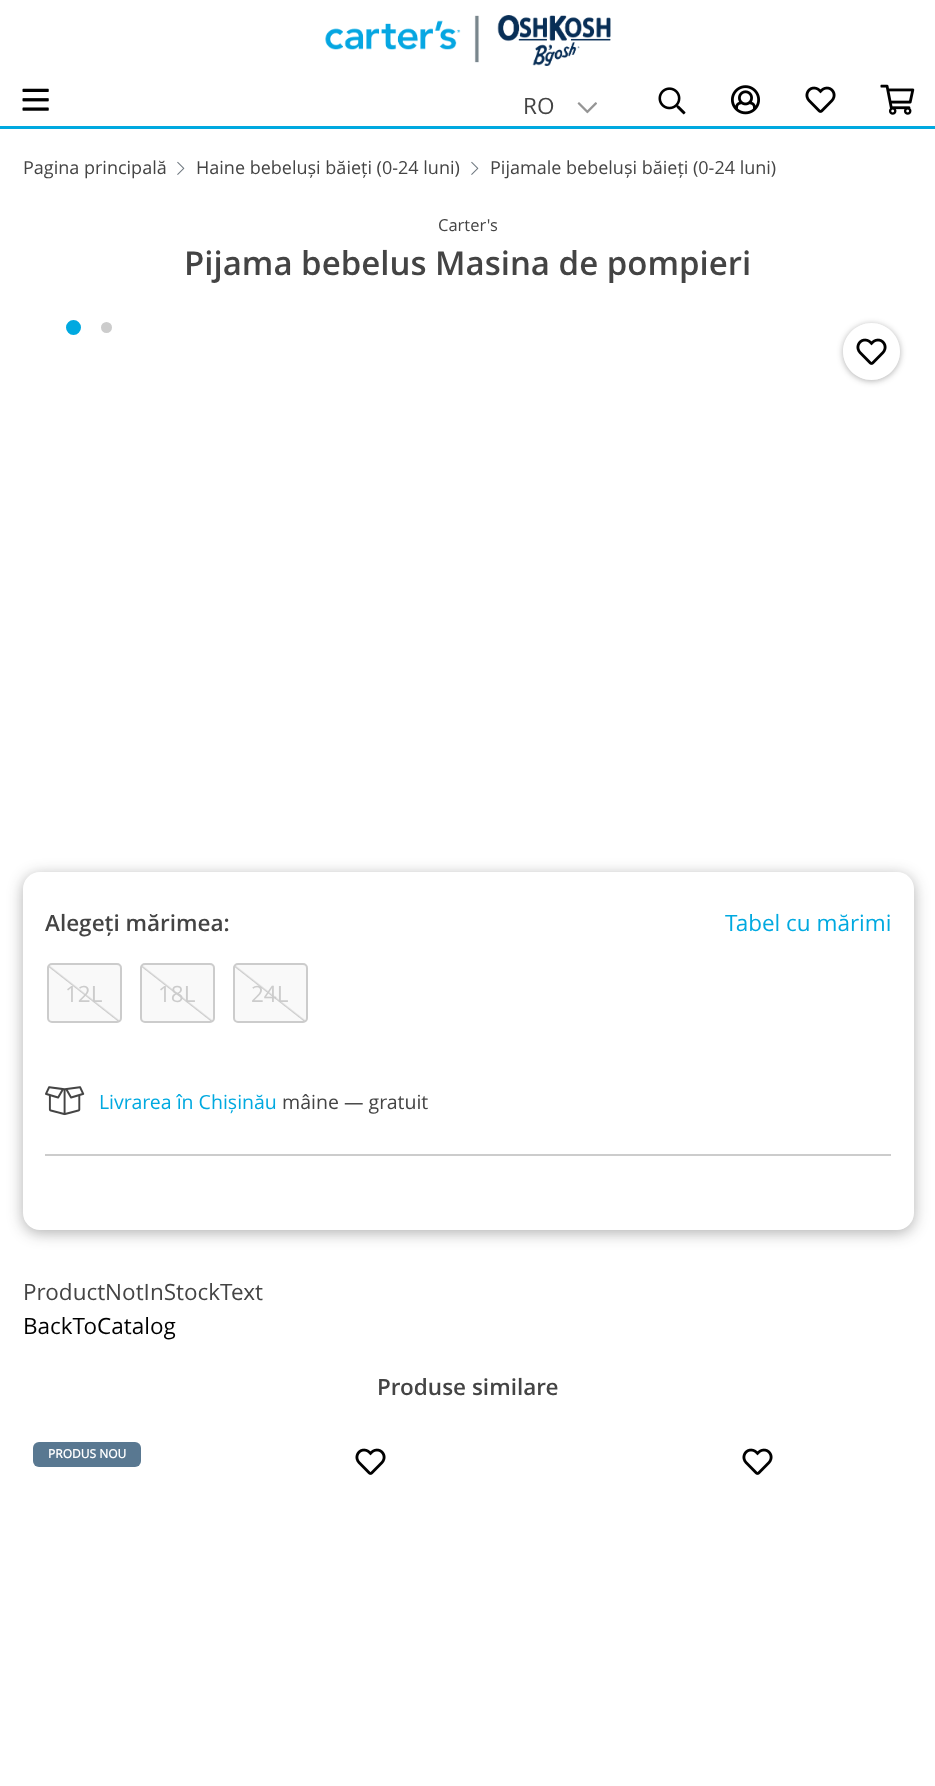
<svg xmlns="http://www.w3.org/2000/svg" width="935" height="1786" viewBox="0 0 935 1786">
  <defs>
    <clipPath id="clip1"><path d="M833 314H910V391H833ZM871.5 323C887 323 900 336 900 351.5C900 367 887 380 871.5 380C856 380 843 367 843 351.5C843 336 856 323 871.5 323Z" clip-rule="evenodd"/></clipPath>
    <linearGradient id="g1" gradientUnits="userSpaceOnUse" x1="113" y1="956" x2="55" y2="1030"><stop offset="0.49" stop-color="rgb(204,204,204)" stop-opacity="0"/><stop offset="0.51" stop-color="rgb(204,204,204)"/><stop offset="0.52" stop-color="rgb(204,204,204)" stop-opacity="0"/></linearGradient>
    <linearGradient id="g2" gradientUnits="userSpaceOnUse" x1="206" y1="956" x2="148" y2="1030"><stop offset="0.49" stop-color="rgb(204,204,204)" stop-opacity="0"/><stop offset="0.51" stop-color="rgb(204,204,204)"/><stop offset="0.52" stop-color="rgb(204,204,204)" stop-opacity="0"/></linearGradient>
    <linearGradient id="g3" gradientUnits="userSpaceOnUse" x1="299" y1="956" x2="241" y2="1030"><stop offset="0.49" stop-color="rgb(204,204,204)" stop-opacity="0"/><stop offset="0.51" stop-color="rgb(204,204,204)"/><stop offset="0.52" stop-color="rgb(204,204,204)" stop-opacity="0"/></linearGradient>
  </defs>
  <rect width="100%" height="100%" fill="rgb(255,255,255)"/>
  <rect x="0" y="126" width="935" height="3" fill="rgb(0,169,224)"/>
  <image x="325" y="15" width="286" height="51" href="pic1.png"/>
  <image x="22" y="88" width="27" height="23" href="pic2.png"/>
  <text x="523" y="114" font-family="Open Sans" font-size="22.5" fill="rgb(68,68,68)">RO</text>
  <image x="577" y="102" width="20" height="12" href="pic3.png"/>
  <image x="658" y="87" width="28" height="28" href="pic4.png"/>
  <image x="731" y="85" width="29" height="30" href="pic5.png"/>
  <image x="805" y="86" width="31" height="27" href="pic6.png"/>
  <image x="880" y="84" width="35" height="31" href="pic7.png"/>
  <text x="23" y="174" font-family="Open Sans" font-size="18" fill="rgb(68,68,68)">Pagina principală</text>
  <image x="177" y="161" width="8" height="14" href="pic8.png"/>
  <text x="196" y="174" font-family="Open Sans" font-size="18" fill="rgb(68,68,68)">Haine bebeluși băieți (0-24 luni)</text>
  <image x="471" y="161" width="8" height="14" href="pic8.png"/>
  <text x="490" y="174" font-family="Open Sans" font-size="18" fill="rgb(68,68,68)">Pijamale bebeluși băieți (0-24 luni)</text>
  <text x="438" y="231" font-family="Open Sans" font-size="16.5" fill="rgb(68,68,68)">Carter's</text>
  <text x="184" y="275" font-family="Open Sans" font-size="33" font-weight="600" fill="rgb(68,68,68)">Pijama bebelus Masina de pompieri</text>
  <circle cx="73.5" cy="327.5" r="6.5" fill="rgb(0,169,224)" stroke="rgb(0,169,224)" stroke-width="2"/>
  <circle cx="106.5" cy="327.5" r="6.5" fill="rgb(204,204,204)" stroke="rgb(255,255,255)" stroke-width="2"/>
  <g clip-path="url(#clip1)">
    <rect x="843" y="324" width="57" height="57" rx="28.5" fill="rgba(29,29,29,0.35)" filter="blur(3px)"/>
  </g>
  <circle cx="871.5" cy="351.5" r="28.5" fill="rgba(255,255,255,0.5)"/>
  <image x="856" y="338" width="31" height="27" href="pic6.png"/>
  <rect x="23" y="875" width="891" height="358" rx="17" fill="rgba(29,29,29,0.35)" filter="blur(7.5px)"/>
  <rect x="23" y="872" width="891" height="358" rx="17" fill="rgb(255,255,255)"/>
  <text x="45" y="931" font-family="Open Sans" font-size="22.5" font-weight="600" fill="rgb(68,68,68)">Alegeți mărimea:</text>
  <text x="725" y="931" font-family="Open Sans" font-size="22.5" fill="rgb(0,169,224)">Tabel cu mărimi</text>
  <rect x="47" y="963" width="75" height="60" rx="5" fill="rgb(249,249,249)"/>
  <rect x="48" y="964" width="73" height="58" rx="4" fill="url(#g1)" stroke="rgb(204,204,204)" stroke-width="2"/>
  <text x="65" y="1002" font-family="Open Sans" font-size="22.5" fill="rgb(204,204,204)">12L</text>
  <rect x="140" y="963" width="75" height="60" rx="5" fill="rgb(249,249,249)"/>
  <rect x="141" y="964" width="73" height="58" rx="4" fill="url(#g2)" stroke="rgb(204,204,204)" stroke-width="2"/>
  <text x="158" y="1002" font-family="Open Sans" font-size="22.5" fill="rgb(204,204,204)">18L</text>
  <rect x="233" y="963" width="75" height="60" rx="5" fill="rgb(249,249,249)"/>
  <rect x="234" y="964" width="73" height="58" rx="4" fill="url(#g3)" stroke="rgb(204,204,204)" stroke-width="2"/>
  <text x="251" y="1002" font-family="Open Sans" font-size="22.5" fill="rgb(204,204,204)">24L</text>
  <image x="45" y="1086" width="40" height="30" href="pic9.png"/>
  <text x="99" y="1109" font-family="Open Sans" font-size="19.5" fill="rgb(0,169,224)">Livrarea în Chișinău</text>
  <text x="282" y="1109" font-family="Open Sans" font-size="19.5" fill="rgb(68,68,68)">mâine — gratuit</text>
  <rect x="45" y="1154" width="846" height="2" fill="rgb(204,204,204)"/>
  <text x="23" y="1300" font-family="Open Sans" font-size="22.5" fill="rgb(68,68,68)">ProductNotInStockText</text>
  <text x="23" y="1334" font-family="Open Sans" font-size="22.5" fill="rgb(0,0,0)">BackToCatalog</text>
  <text x="377" y="1395" font-family="Open Sans" font-size="22.5" font-weight="600" fill="rgb(68,68,68)">Produse similare</text>
  <rect x="33" y="1442" width="108" height="25" rx="6" fill="rgb(89,120,145)"/>
  <text x="48" y="1458" font-family="Open Sans" font-size="12" font-weight="bold" fill="rgb(255,255,255)">PRODUS NOU</text>
  <image x="355" y="1448" width="31" height="27" href="pic6.png"/>
  <image x="742" y="1448" width="31" height="27" href="pic6.png"/>
</svg>
